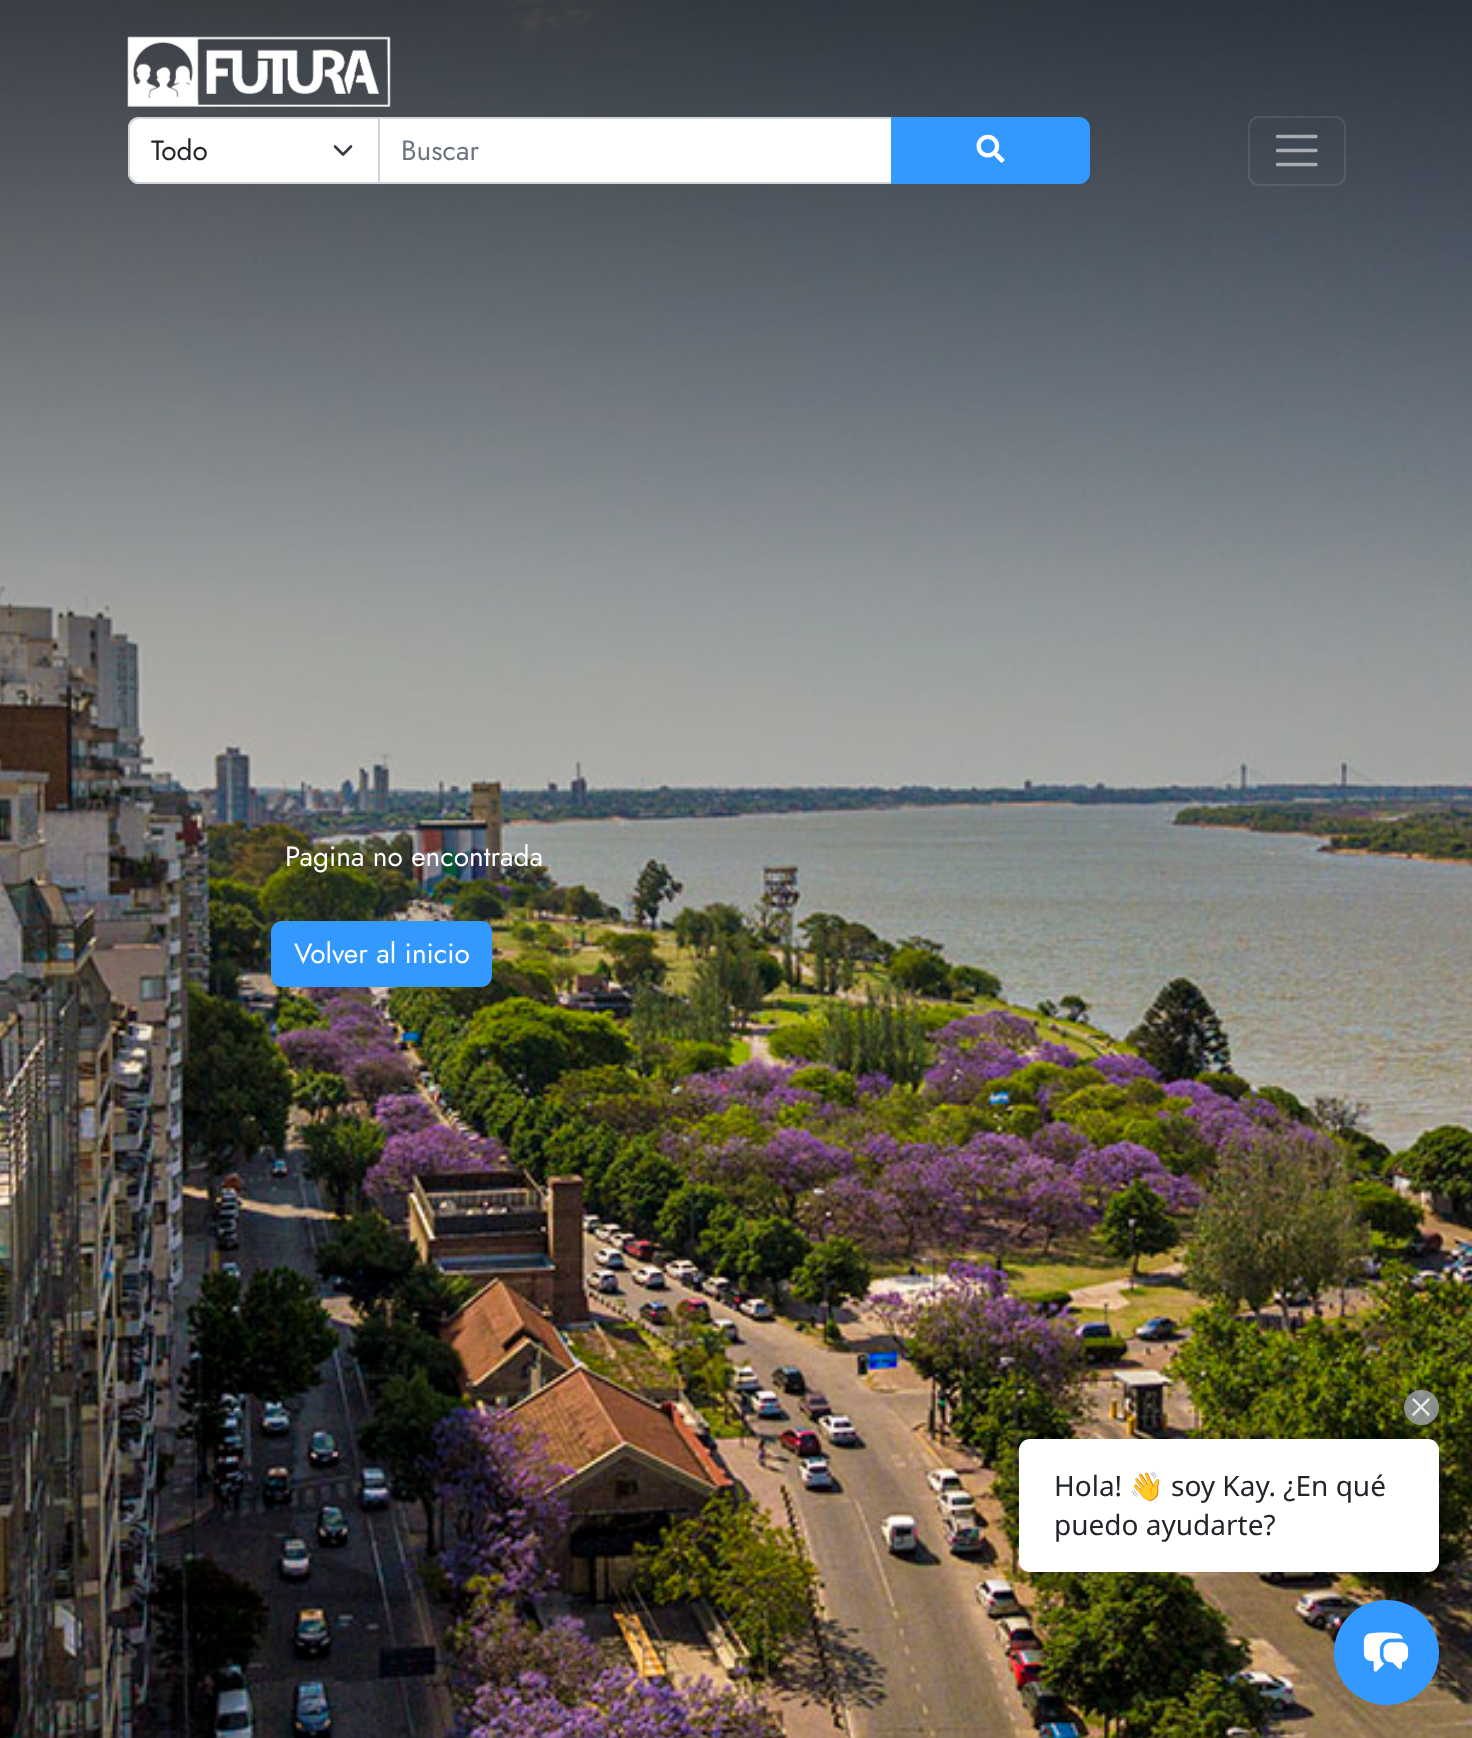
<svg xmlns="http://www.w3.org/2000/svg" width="1472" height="1738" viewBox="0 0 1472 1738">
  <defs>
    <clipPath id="clip1"><rect x="151" y="130" width="164" height="42"/></clipPath>
  </defs>
  <rect width="100%" height="100%" fill="rgb(255,255,255)"/>
  <image x="0" y="0" width="1472" height="1738" href="pic3.png"/>
  <image x="127" y="36" width="264" height="71" href="pic1.png"/>
  <path d="M139 117H380V184H139C133 184 128 179 128 173V128C128 122 133 117 139 117Z" fill="rgb(255,255,255)"/>
  <path d="M335 146.5L343 154.5L351 146.5" fill="none" stroke="rgb(52,58,64)" stroke-width="2.6" stroke-linecap="round" stroke-linejoin="round"/>
  <path d="M139 118H379V183H139C133.5 183 129 178.5 129 173V128C129 122.5 133.5 118 139 118Z" fill="none" stroke="rgb(206,212,218)" stroke-width="2"/>
  <g clip-path="url(#clip1)">
    <text x="151" y="160" font-family="Jost" font-size="28" fill="rgb(33,37,41)">Todo</text>
  </g>
  <rect x="379" y="118" width="513" height="65" fill="rgb(255,255,255)" stroke="rgb(206,212,218)" stroke-width="2"/>
  <text x="401" y="160" font-family="Jost" font-size="28" fill="rgb(108,117,125)">Buscar</text>
  <path d="M892 118H1079C1084.5 118 1089 122.5 1089 128V173C1089 178.5 1084.5 183 1079 183H892Z" fill="rgb(51,153,255)" stroke="rgb(51,153,255)" stroke-width="2"/>
  <image x="976" y="134" width="29" height="29" href="pic2.png"/>
  <rect x="1249" y="117" width="96" height="68" rx="10" fill="none" stroke="rgba(255,255,255,0.1)" stroke-width="2"/>
  <path d="M1277.5 136.5H1316M1277.5 150.5H1316M1277.5 164.5H1316" fill="none" stroke="rgba(255,255,255,0.55)" stroke-width="3.5" stroke-linecap="round"/>
  <text x="285" y="866" font-family="Jost" font-size="28" fill="rgb(255,255,255)">Pagina no encontrada</text>
  <rect x="272" y="922" width="219" height="64" rx="10" fill="rgb(51,153,255)" stroke="rgb(51,153,255)" stroke-width="2"/>
  <text x="294" y="963" font-family="Jost" font-size="28" fill="rgb(255,255,255)">Volver al inicio</text>
  <rect x="1026" y="1446" width="406" height="119" rx="4" fill="rgba(0,0,0,0.2)" filter="blur(14px)"/>
  <circle cx="1421.5" cy="1407.5" r="17.5" fill="rgba(156,163,175,0.8)"/>
  <image x="1412" y="1398" width="18" height="18" href="pic4.png"/>
  <rect x="1019" y="1439" width="420" height="133" rx="11" fill="rgb(255,255,255)"/>
  <text x="1054" y="1496" font-family="Noto Sans" font-size="28" fill="rgb(33,37,41)">Hola!</text>
  <text x="1129" y="1496" font-family="Noto Color Emoji" font-size="28" fill="rgb(33,37,41)">👋</text>
  <g font-family="Noto Sans" font-size="28" fill="rgb(33,37,41)">
    <text x="1171" y="1496">soy Kay. ¿En qué</text>
    <text x="1054" y="1535">puedo ayudarte?</text>
  </g>
  <circle cx="1386.5" cy="1652.5" r="52.5" fill="rgb(51,153,255)"/>
  <image x="1363" y="1632" width="46" height="40" href="pic5.png"/>
</svg>
